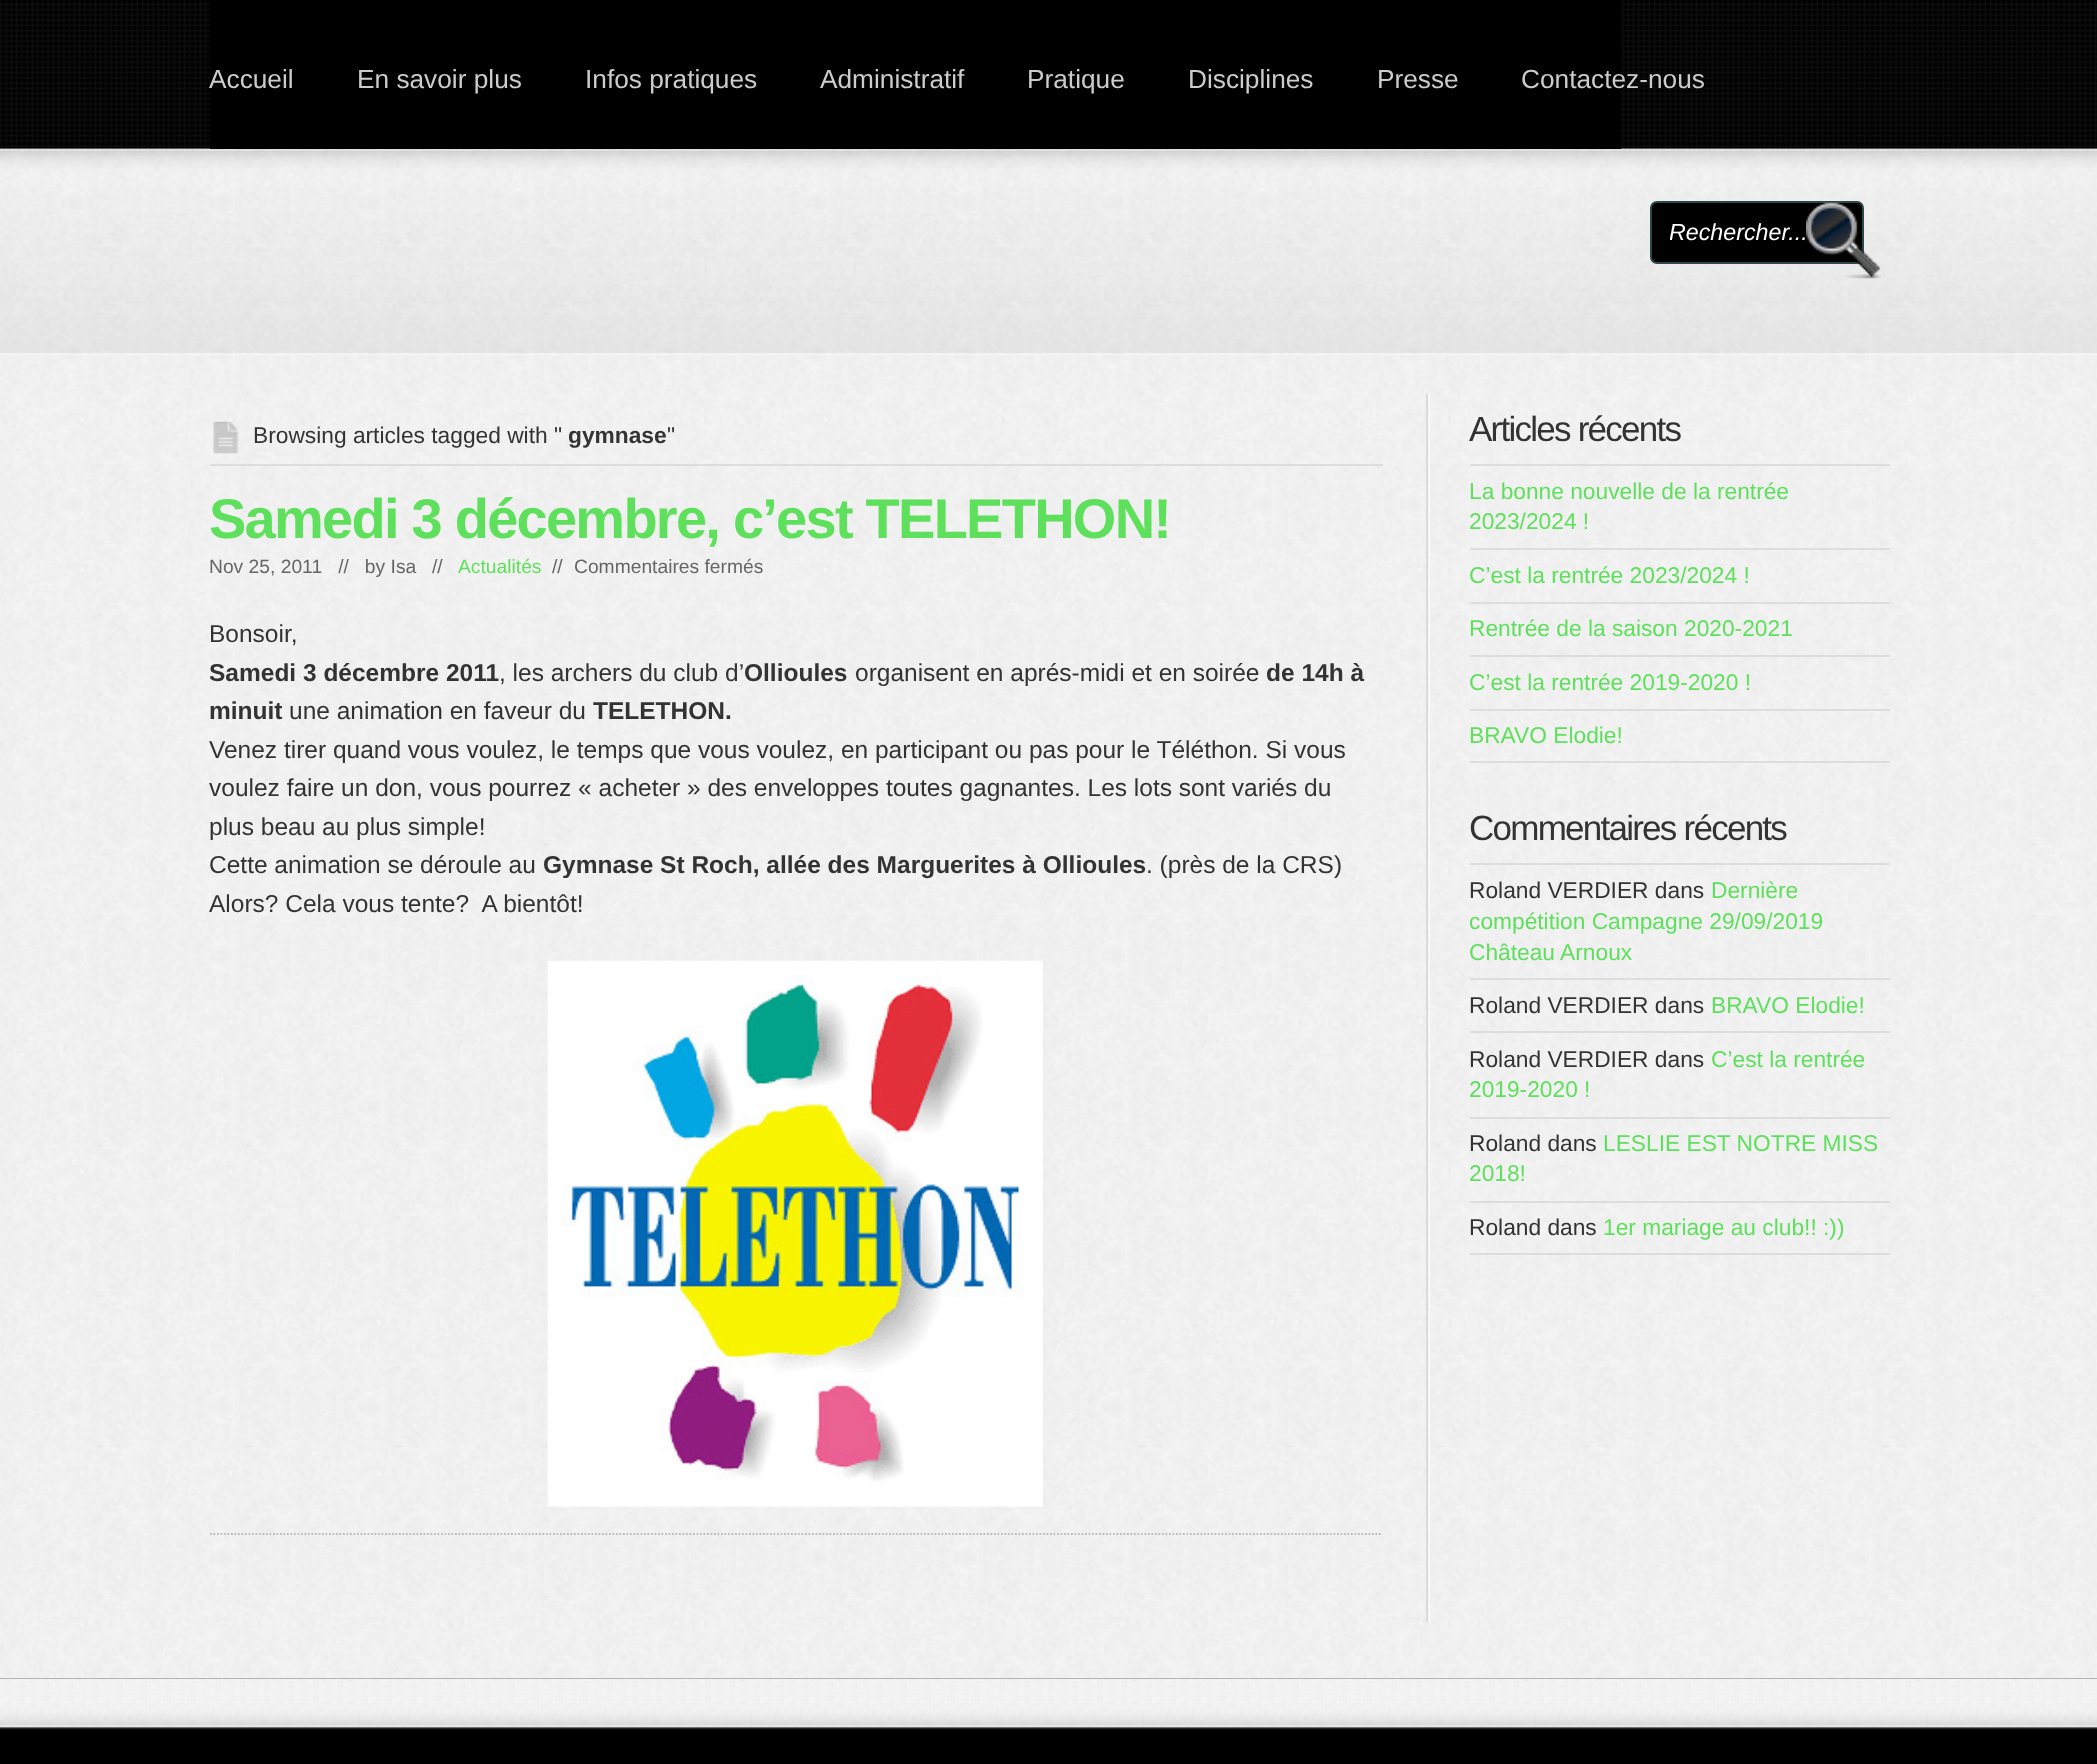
<svg xmlns="http://www.w3.org/2000/svg" width="2097" height="1764" viewBox="0 0 2097 1764">
  <defs>
    <clipPath id="clip1"><rect x="1670" y="219" width="175" height="26"/></clipPath>
  </defs>
  <rect width="100%" height="100%" fill="rgb(255,255,255)"/>
  <image x="0" y="0" width="2097" height="1678" href="pic1.png"/>
  <image x="0" y="0" width="2097" height="355" href="pic2.png"/>
  <rect x="210" y="0" width="1411" height="149" fill="rgb(0,0,0)"/>
  <g font-family="Liberation Sans" font-size="26.25" fill="rgb(204,204,204)">
    <text x="209" y="88">Accueil</text>
    <text x="357" y="88">En savoir plus</text>
    <text x="585" y="88">Infos pratiques</text>
    <text x="820" y="88">Administratif</text>
    <text x="1027" y="88">Pratique</text>
    <text x="1188" y="88">Disciplines</text>
    <text x="1377" y="88">Presse</text>
    <text x="1521" y="88">Contactez-nous</text>
  </g>
  <rect x="1651" y="202" width="212" height="61" rx="6" fill="rgb(0,0,0)" stroke="rgb(46,72,73)" stroke-width="2"/>
  <g clip-path="url(#clip1)">
    <text x="1669" y="240" font-family="Liberation Sans" font-size="23.25" font-style="italic" fill="rgb(255,255,255)">Rechercher...</text>
  </g>
  <image x="1806" y="202" width="75" height="77" href="pic3.png"/>
  <image x="1426" y="393" width="4" height="1230" href="pic4.png"/>
  <image x="213" y="421" width="26" height="33" href="pic5.png"/>
  <rect x="210" y="464" width="1173" height="2" fill="rgb(221,221,221)"/>
  <text x="253" y="443" font-family="Liberation Sans" font-size="22.75" fill="rgb(51,51,51)">Browsing articles tagged with "</text>
  <text x="568" y="443" font-family="Liberation Sans" font-size="22.75" font-weight="bold" fill="rgb(51,51,51)">gymnase</text>
  <text x="667" y="443" font-family="Liberation Sans" font-size="22.75" fill="rgb(51,51,51)">"</text>
  <path d="M210 1534H1382.5" fill="none" stroke="rgb(187,187,187)" stroke-width="1.8" stroke-dasharray="1.75 1.75"/>
  <text x="209" y="538" font-family="Liberation Sans" font-size="56" font-weight="bold" letter-spacing="-1.75" fill="rgb(95,224,93)">Samedi 3 décembre, c’est TELETHON!</text>
  <g font-family="Liberation Sans" font-size="19.25" fill="rgb(102,102,102)">
    <text x="209" y="573" xml:space="preserve">Nov 25, 2011   //   by Isa</text>
    <text x="432" y="573">//</text>
  </g>
  <text x="458" y="573" font-family="Liberation Sans" font-size="19.25" fill="rgb(95,224,93)">Actualités</text>
  <g font-family="Liberation Sans" font-size="19.25" fill="rgb(102,102,102)">
    <text x="552" y="573">//</text>
    <text x="574" y="573">Commentaires fermés</text>
  </g>
  <text x="209" y="642" font-family="Liberation Sans" font-size="24.5" fill="rgb(51,51,51)">Bonsoir,</text>
  <text x="209" y="681" font-family="Liberation Sans" font-size="24.5" font-weight="bold" fill="rgb(51,51,51)">Samedi 3 décembre 2011</text>
  <text x="499" y="681" font-family="Liberation Sans" font-size="24.5" fill="rgb(51,51,51)">, les archers du club d’</text>
  <text x="744" y="681" font-family="Liberation Sans" font-size="24.5" font-weight="bold" fill="rgb(51,51,51)">Ollioules</text>
  <text x="855" y="681" font-family="Liberation Sans" font-size="24.5" fill="rgb(51,51,51)">organisent en aprés-midi et en soirée</text>
  <g font-family="Liberation Sans" font-size="24.5" font-weight="bold" fill="rgb(51,51,51)">
    <text x="1266" y="681">de 14h à</text>
    <text x="209" y="719">minuit</text>
  </g>
  <text x="289" y="719" font-family="Liberation Sans" font-size="24.5" fill="rgb(51,51,51)">une animation en faveur du</text>
  <text x="593" y="719" font-family="Liberation Sans" font-size="24.5" font-weight="bold" fill="rgb(51,51,51)">TELETHON.</text>
  <g font-family="Liberation Sans" font-size="24.5" fill="rgb(51,51,51)">
    <text>
      <tspan x="209" y="758">Venez tirer quand vous voulez, le temps que vous voulez, en participant ou pas pour le Téléthon. Si vous</tspan>
      <tspan x="209" y="796">voulez faire un don, vous pourrez « acheter » des enveloppes toutes gagnantes. Les lots sont variés du</tspan>
      <tspan x="209" y="835">plus beau au plus simple!</tspan>
      <tspan x="209" y="873">Cette animation se déroule au</tspan>
    </text>
  </g>
  <text x="543" y="873" font-family="Liberation Sans" font-size="24.5" font-weight="bold" fill="rgb(51,51,51)">Gymnase St Roch, allée des Marguerites à Ollioules</text>
  <g font-family="Liberation Sans" font-size="24.5" fill="rgb(51,51,51)">
    <text x="1146" y="873">. (près de la CRS)</text>
    <text x="209" y="912" xml:space="preserve">Alors? Cela vous tente?  A bientôt!</text>
  </g>
  <image x="547" y="960" width="496" height="547" href="pic6.png"/>
  <text x="1469" y="441" font-family="Liberation Sans" font-size="35" letter-spacing="-1.75" fill="rgb(51,51,51)">Articles récents</text>
  <rect x="1470" y="464" width="420" height="2" fill="rgb(221,221,221)"/>
  <rect x="1470" y="548" width="420" height="2" fill="rgb(221,221,221)"/>
  <g font-family="Liberation Sans" font-size="22.75" fill="rgb(95,224,93)">
    <text>
      <tspan x="1469" y="499">La bonne nouvelle de la rentrée</tspan>
      <tspan x="1469" y="529">2023/2024 !</tspan>
    </text>
  </g>
  <rect x="1470" y="602" width="420" height="2" fill="rgb(221,221,221)"/>
  <text x="1469" y="583" font-family="Liberation Sans" font-size="22.75" fill="rgb(95,224,93)">C’est la rentrée 2023/2024 !</text>
  <rect x="1470" y="655" width="420" height="2" fill="rgb(221,221,221)"/>
  <text x="1469" y="636" font-family="Liberation Sans" font-size="22.75" fill="rgb(95,224,93)">Rentrée de la saison 2020-2021</text>
  <rect x="1470" y="709" width="420" height="2" fill="rgb(221,221,221)"/>
  <text x="1469" y="690" font-family="Liberation Sans" font-size="22.75" fill="rgb(95,224,93)">C’est la rentrée 2019-2020 !</text>
  <rect x="1470" y="761" width="420" height="2" fill="rgb(221,221,221)"/>
  <text x="1469" y="743" font-family="Liberation Sans" font-size="22.75" fill="rgb(95,224,93)">BRAVO Elodie!</text>
  <text x="1469" y="840" font-family="Liberation Sans" font-size="35" letter-spacing="-1.75" fill="rgb(51,51,51)">Commentaires récents</text>
  <rect x="1470" y="863" width="420" height="2" fill="rgb(221,221,221)"/>
  <rect x="1470" y="978" width="420" height="2" fill="rgb(221,221,221)"/>
  <text x="1469" y="898" font-family="Liberation Sans" font-size="22.75" fill="rgb(51,51,51)">Roland VERDIER dans</text>
  <g font-family="Liberation Sans" font-size="22.75" fill="rgb(95,224,93)">
    <text x="1711" y="898">Dernière</text>
    <text>
      <tspan x="1469" y="929">compétition Campagne 29/09/2019</tspan>
      <tspan x="1469" y="960">Château Arnoux</tspan>
    </text>
  </g>
  <rect x="1470" y="1031" width="420" height="2" fill="rgb(221,221,221)"/>
  <text x="1469" y="1013" font-family="Liberation Sans" font-size="22.75" fill="rgb(51,51,51)">Roland VERDIER dans</text>
  <text x="1711" y="1013" font-family="Liberation Sans" font-size="22.75" fill="rgb(95,224,93)">BRAVO Elodie!</text>
  <rect x="1470" y="1117" width="420" height="2" fill="rgb(221,221,221)"/>
  <text x="1469" y="1067" font-family="Liberation Sans" font-size="22.75" fill="rgb(51,51,51)">Roland VERDIER dans</text>
  <g font-family="Liberation Sans" font-size="22.75" fill="rgb(95,224,93)">
    <text x="1711" y="1067">C’est la rentrée</text>
    <text x="1469" y="1097">2019-2020 !</text>
  </g>
  <rect x="1470" y="1201" width="420" height="2" fill="rgb(221,221,221)"/>
  <text x="1469" y="1151" font-family="Liberation Sans" font-size="22.75" fill="rgb(51,51,51)">Roland dans</text>
  <g font-family="Liberation Sans" font-size="22.75" fill="rgb(95,224,93)">
    <text x="1603" y="1151">LESLIE EST NOTRE MISS</text>
    <text x="1469" y="1181">2018!</text>
  </g>
  <rect x="1470" y="1253" width="420" height="2" fill="rgb(221,221,221)"/>
  <text x="1469" y="1235" font-family="Liberation Sans" font-size="22.75" fill="rgb(51,51,51)">Roland dans</text>
  <text x="1603" y="1235" font-family="Liberation Sans" font-size="22.75" fill="rgb(95,224,93)">1er mariage au club!! :))</text>
  <rect x="0" y="1678" width="2097" height="86" fill="rgb(0,0,0)"/>
  <image x="0" y="1678" width="2097" height="52" href="pic7.png"/>
</svg>
